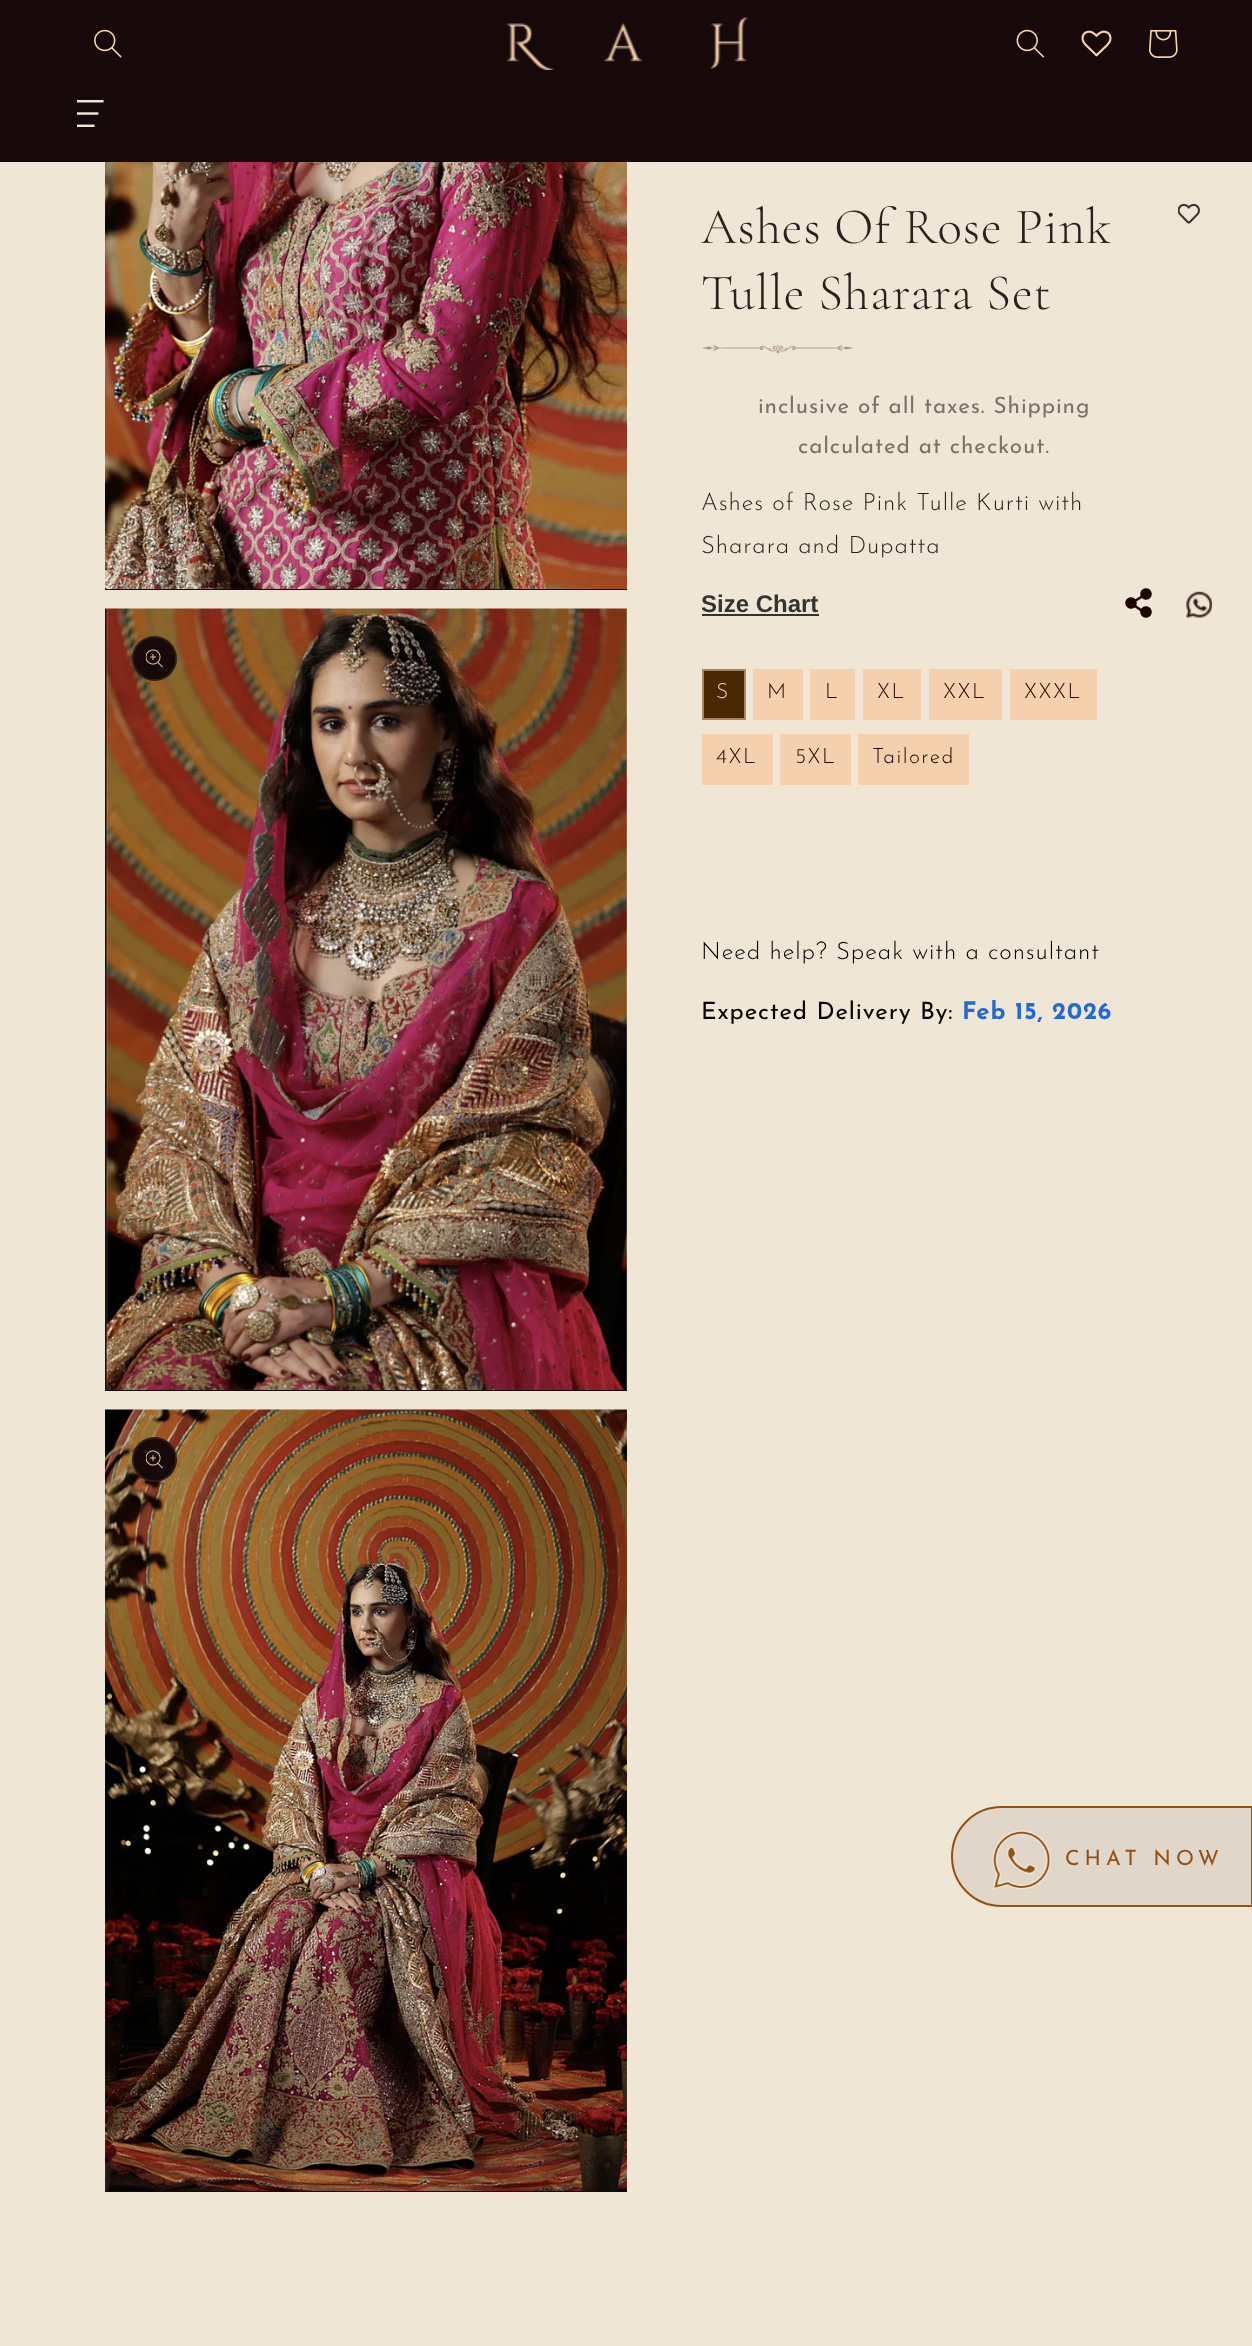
<svg xmlns="http://www.w3.org/2000/svg" width="1252" height="2346" viewBox="0 0 1252 2346">
  <rect width="100%" height="100%" fill="rgb(239,230,214)"/>
  <rect x="0" y="0" width="1252" height="162" fill="rgb(23,8,9)"/>
  <image x="94" y="29" width="28" height="29" href="pic1.png"/>
  <image x="506" y="17" width="242" height="53" href="pic2.png"/>
  <image x="1016" y="29" width="28" height="29" href="pic3.png"/>
  <image x="1081" y="30" width="31" height="27" href="pic4.png"/>
  <image x="1149" y="30" width="29" height="28" href="pic5.png"/>
  <image x="77" y="100" width="27" height="27" href="pic6.png"/>
  <rect x="105" y="589" width="522" height="1" fill="rgb(23,8,9)"/>
  <image x="105" y="162" width="522" height="427" href="pic7.png"/>
  <rect x="105" y="1390" width="522" height="1" fill="rgb(23,8,9)"/>
  <image x="105" y="608" width="522" height="782" href="pic8.png"/>
  <circle cx="154.5" cy="658.5" r="22.5" fill="rgb(23,8,9)"/>
  <circle cx="154.5" cy="658.5" r="21.5" fill="none" stroke="rgba(244,208,175,0.1)" stroke-width="2"/>
  <image x="146" y="649" width="17" height="19" href="pic9.png"/>
  <rect x="105" y="2191" width="522" height="1" fill="rgb(23,8,9)"/>
  <image x="105" y="1409" width="522" height="782" href="pic10.png"/>
  <circle cx="154.5" cy="1459.5" r="22.5" fill="rgb(23,8,9)"/>
  <circle cx="154.5" cy="1459.5" r="21.5" fill="none" stroke="rgba(244,208,175,0.1)" stroke-width="2"/>
  <image x="146" y="1450" width="17" height="19" href="pic9.png"/>
  <g font-family="Cormorant Garamond" font-size="51" font-weight="300" letter-spacing="0.9" fill="rgb(45,31,30)">
    <text>
      <tspan x="701" y="243">Ashes Of Rose Pink</tspan>
      <tspan x="701" y="309">Tulle Sharara Set</tspan>
    </text>
  </g>
  <image x="702" y="344" width="151" height="10" href="pic11.png"/>
  <image x="1178" y="203" width="22" height="21" href="pic12.png"/>
  <g font-family="Josefin Sans" font-size="22.5" font-weight="100" letter-spacing="0.9" fill="rgb(120,115,107)">
    <text x="758" y="413">inclusive of all taxes. Shipping</text>
    <text x="798" y="453">calculated at checkout.</text>
  </g>
  <g font-family="Josefin Sans" font-size="24" font-weight="300" letter-spacing="0.9" fill="rgb(45,31,30)">
    <text>
      <tspan x="701" y="510">Ashes of Rose Pink Tulle Kurti with</tspan>
      <tspan x="701" y="553">Sharara and Dupatta</tspan>
    </text>
  </g>
  <text x="701" y="612" font-family="Liberation Sans" font-size="24" font-weight="bold" fill="rgb(51,51,51)">Size Chart</text>
  <rect x="702" y="614" width="117" height="2" fill="rgb(51,51,51)"/>
  <image x="1125" y="588" width="27" height="30" href="pic13.png"/>
  <image x="1186" y="591" width="26" height="27" href="pic14.png"/>
  <rect x="703" y="670" width="42" height="49" fill="rgb(73,39,3)" stroke="rgb(167,132,98)" stroke-width="2"/>
  <text x="716" y="698" font-family="Josefin Sans" font-size="21" font-weight="300" letter-spacing="1.5" fill="rgb(244,208,175)">S</text>
  <rect x="753" y="669" width="50" height="51" fill="rgb(244,208,175)"/>
  <text x="767" y="698" font-family="Josefin Sans" font-size="21" font-weight="300" letter-spacing="1.5" fill="rgb(29,5,2)">M</text>
  <rect x="810" y="669" width="45" height="51" fill="rgb(244,208,175)"/>
  <text x="825" y="698" font-family="Josefin Sans" font-size="21" font-weight="300" letter-spacing="1.5" fill="rgb(29,5,2)">L</text>
  <rect x="863" y="669" width="58" height="51" fill="rgb(244,208,175)"/>
  <text x="877" y="698" font-family="Josefin Sans" font-size="21" font-weight="300" letter-spacing="1.5" fill="rgb(29,5,2)">XL</text>
  <rect x="929" y="669" width="73" height="51" fill="rgb(244,208,175)"/>
  <text x="943" y="698" font-family="Josefin Sans" font-size="21" font-weight="300" letter-spacing="1.5" fill="rgb(29,5,2)">XXL</text>
  <rect x="1010" y="669" width="87" height="51" fill="rgb(244,208,175)"/>
  <text x="1024" y="698" font-family="Josefin Sans" font-size="21" font-weight="300" letter-spacing="1.5" fill="rgb(29,5,2)">XXXL</text>
  <rect x="702" y="734" width="71" height="51" fill="rgb(244,208,175)"/>
  <text x="716" y="763" font-family="Josefin Sans" font-size="21" font-weight="300" letter-spacing="1.5" fill="rgb(29,5,2)">4XL</text>
  <rect x="780" y="734" width="71" height="51" fill="rgb(244,208,175)"/>
  <text x="795" y="763" font-family="Josefin Sans" font-size="21" font-weight="300" letter-spacing="1.5" fill="rgb(29,5,2)">5XL</text>
  <rect x="858" y="734" width="111" height="51" fill="rgb(244,208,175)"/>
  <text x="872" y="763" font-family="Josefin Sans" font-size="21" font-weight="300" letter-spacing="1.5" fill="rgb(29,5,2)">Tailored</text>
  <text x="701" y="1019" font-family="Josefin Sans" font-size="24" font-weight="100" letter-spacing="0.9" fill="rgb(0,0,0)">Expected Delivery By:</text>
  <text x="962" y="1019" font-family="Josefin Sans" font-size="24" font-weight="bold" letter-spacing="0.9" fill="rgb(36,104,209)">Feb 15, 2026</text>
  <text x="701" y="959" font-family="Josefin Sans" font-size="24" font-weight="300" letter-spacing="0.9" fill="rgb(0,0,0)">Need help? Speak with a consultant</text>
  <path d="M1001.5 1807H1252V1906H1001.5C974 1906 952 1884 952 1856.5C952 1829 974 1807 1001.5 1807Z" fill="rgb(224,214,201)" stroke="rgb(146,80,19)" stroke-width="2"/>
  <image x="992" y="1830" width="59" height="60" href="pic15.png"/>
  <text x="1065" y="1865" font-family="Josefin Sans" font-size="21" font-weight="100" letter-spacing="5" fill="rgb(146,80,19)">CHAT NOW</text>
</svg>
